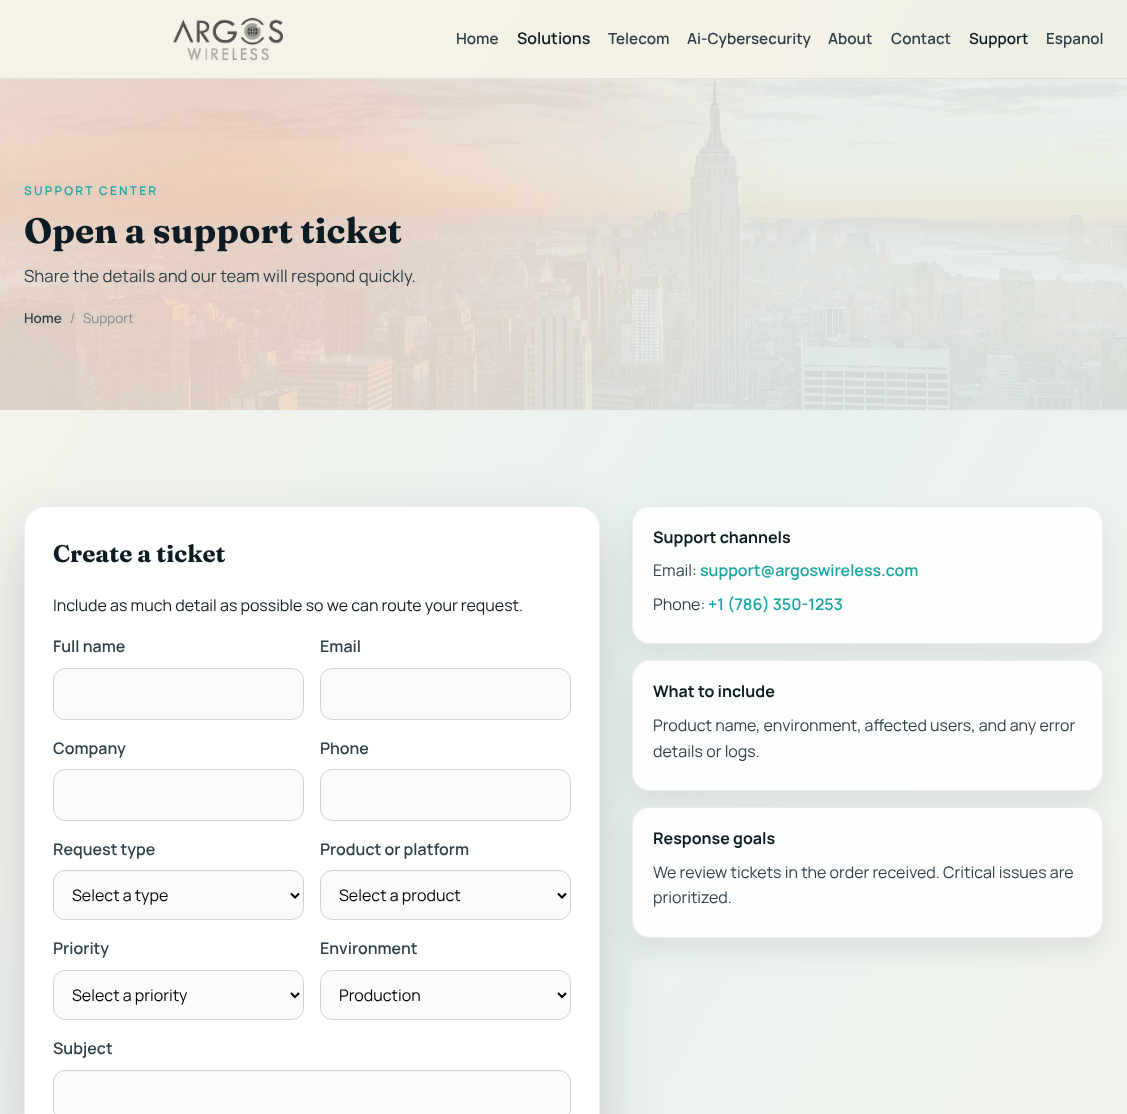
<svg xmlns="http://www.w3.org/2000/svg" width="1127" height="1114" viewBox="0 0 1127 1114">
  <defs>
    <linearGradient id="g1" gradientUnits="userSpaceOnUse" x1="-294" y1="510" x2="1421" y2="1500"><stop offset="0" stop-color="rgb(247,243,234)"/><stop offset="0.45" stop-color="rgb(232,241,239)"/><stop offset="1" stop-color="rgb(247,243,234)"/></linearGradient>
    <radialGradient id="g2" gradientUnits="userSpaceOnUse" cx="1027" cy="80" r="368"><stop offset="0" stop-color="rgb(26,167,161)" stop-opacity="0.28"/><stop offset="0.7" stop-color="rgb(26,167,161)" stop-opacity="0"/></radialGradient>
    <clipPath id="clip1"><path d="M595 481H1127V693H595ZM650 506H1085C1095 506 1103 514 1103 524V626C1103 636 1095 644 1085 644H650C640 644 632 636 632 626V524C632 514 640 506 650 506Z" clip-rule="evenodd"/></clipPath>
    <clipPath id="clip2"><path d="M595 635H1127V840H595ZM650 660H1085C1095 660 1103 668 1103 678V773C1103 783 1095 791 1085 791H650C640 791 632 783 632 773V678C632 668 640 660 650 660Z" clip-rule="evenodd"/></clipPath>
    <clipPath id="clip3"><path d="M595 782H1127V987H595ZM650 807H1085C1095 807 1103 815 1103 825V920C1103 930 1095 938 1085 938H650C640 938 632 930 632 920V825C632 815 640 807 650 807Z" clip-rule="evenodd"/></clipPath>
  </defs>
  <rect width="100%" height="100%" fill="rgb(255,255,255)"/>
  <rect x="0" y="0" width="1127" height="1114" fill="url(#g1)"/>
  <rect x="789" y="0" width="338" height="79" fill="url(#g2)"/>
  <rect x="0" y="0" width="1127" height="79" fill="rgba(245,241,230,0.88)"/>
  <rect x="0" y="78" width="1127" height="1" fill="rgba(13,27,34,0.08)"/>
  <image x="173" y="18" width="110" height="42" href="pic1.png"/>
  <text x="456" y="44" font-family="Manrope" font-size="15.25" font-weight="600" fill="rgb(47,63,72)">Home</text>
  <text x="517" y="44" font-family="Manrope" font-size="16" font-weight="600" fill="rgb(13,27,34)">Solutions</text>
  <g font-family="Manrope" font-size="15.25" font-weight="600" fill="rgb(47,63,72)">
    <text x="608" y="44">Telecom</text>
    <text x="687" y="44">Ai-Cybersecurity</text>
    <text x="828" y="44">About</text>
    <text x="891" y="44">Contact</text>
  </g>
  <text x="969" y="44" font-family="Manrope" font-size="15.25" font-weight="600" fill="rgb(13,27,34)">Support</text>
  <text x="1046" y="44" font-family="Manrope" font-size="15.25" font-weight="600" fill="rgb(47,63,72)">Espanol</text>
  <image x="0" y="79" width="1127" height="331" href="pic2.png"/>
  <text x="24" y="195" font-family="Manrope" font-size="12" font-weight="600" letter-spacing="2.2" fill="rgb(26,167,161)">SUPPORT CENTER</text>
  <text x="24" y="243" font-family="Fraunces" font-size="35.25" font-weight="bold" fill="rgb(13,27,34)">Open a support ticket</text>
  <text x="24" y="282" font-family="Manrope" font-size="16.8" fill="rgb(47,63,72)">Share the details and our team will respond quickly.</text>
  <text x="24" y="323" font-family="Manrope" font-size="13.5" font-weight="600" fill="rgb(47,63,72)">Home</text>
  <g font-family="Manrope" font-size="13.5" fill="rgb(131,138,140)">
    <text x="70" y="323">/</text>
    <text x="83" y="323">Support</text>
  </g>
  <rect x="24" y="530" width="576" height="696" rx="22" fill="rgba(13,27,34,0.16)" filter="blur(30px)"/>
  <rect x="24" y="506" width="576" height="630" rx="22" fill="rgb(255,255,255)"/>
  <rect x="24.5" y="506.5" width="575" height="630" rx="21.5" fill="none" stroke="rgba(13,27,34,0.08)"/>
  <text x="53" y="562" font-family="Fraunces" font-size="24" font-weight="bold" fill="rgb(13,27,34)">Create a ticket</text>
  <text x="53" y="611" font-family="Manrope" font-size="16" fill="rgb(13,27,34)">Include as much detail as possible so we can route your request.</text>
  <text x="53" y="652" font-family="Manrope" font-size="16" font-weight="600" fill="rgb(47,63,72)">Full name</text>
  <rect x="53.5" y="668.5" width="250" height="51" rx="11.5" fill="rgb(251,251,250)" stroke="rgb(208,211,211)"/>
  <text x="320" y="652" font-family="Manrope" font-size="16" font-weight="600" fill="rgb(47,63,72)">Email</text>
  <rect x="320.5" y="668.5" width="250" height="51" rx="11.5" fill="rgb(251,251,250)" stroke="rgb(208,211,211)"/>
  <text x="53" y="754" font-family="Manrope" font-size="16" font-weight="600" fill="rgb(47,63,72)">Company</text>
  <rect x="53.5" y="769.5" width="250" height="51" rx="11.5" fill="rgb(251,251,250)" stroke="rgb(208,211,211)"/>
  <text x="320" y="754" font-family="Manrope" font-size="16" font-weight="600" fill="rgb(47,63,72)">Phone</text>
  <rect x="320.5" y="769.5" width="250" height="51" rx="11.5" fill="rgb(251,251,250)" stroke="rgb(208,211,211)"/>
  <text x="53" y="855" font-family="Manrope" font-size="16" font-weight="600" fill="rgb(47,63,72)">Request type</text>
  <rect x="53.5" y="870.5" width="250" height="49" rx="11.5" fill="rgb(251,251,250)" stroke="rgb(208,211,211)"/>
  <path d="M291 893.5L295 897.5L299 893.5" fill="none" stroke="rgb(0,0,0)" stroke-width="2"/>
  <text x="72" y="901" font-family="Manrope" font-size="16" fill="rgb(0,0,0)">Select a type</text>
  <text x="320" y="855" font-family="Manrope" font-size="16" font-weight="600" fill="rgb(47,63,72)">Product or platform</text>
  <rect x="320.5" y="870.5" width="250" height="49" rx="11.5" fill="rgb(251,251,250)" stroke="rgb(208,211,211)"/>
  <path d="M558 893.5L562 897.5L566 893.5" fill="none" stroke="rgb(0,0,0)" stroke-width="2"/>
  <text x="339" y="901" font-family="Manrope" font-size="16" fill="rgb(0,0,0)">Select a product</text>
  <text x="53" y="954" font-family="Manrope" font-size="16" font-weight="600" fill="rgb(47,63,72)">Priority</text>
  <rect x="53.5" y="970.5" width="250" height="49" rx="11.5" fill="rgb(251,251,250)" stroke="rgb(208,211,211)"/>
  <path d="M291 993L295 997L299 993" fill="none" stroke="rgb(0,0,0)" stroke-width="2"/>
  <text x="72" y="1001" font-family="Manrope" font-size="16" fill="rgb(0,0,0)">Select a priority</text>
  <text x="320" y="954" font-family="Manrope" font-size="16" font-weight="600" fill="rgb(47,63,72)">Environment</text>
  <rect x="320.5" y="970.5" width="250" height="49" rx="11.5" fill="rgb(251,251,250)" stroke="rgb(208,211,211)"/>
  <path d="M558 993L562 997L566 993" fill="none" stroke="rgb(0,0,0)" stroke-width="2"/>
  <text x="339" y="1001" font-family="Manrope" font-size="16" fill="rgb(0,0,0)">Production</text>
  <text x="53" y="1054" font-family="Manrope" font-size="16" font-weight="600" fill="rgb(47,63,72)">Subject</text>
  <rect x="53.5" y="1070.5" width="517" height="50" rx="11.5" fill="rgb(251,251,250)" stroke="rgb(208,211,211)"/>
  <g clip-path="url(#clip1)">
    <rect x="632" y="518" width="471" height="138" rx="18" fill="rgba(13,27,34,0.08)" filter="blur(12px)"/>
  </g>
  <rect x="632" y="506" width="471" height="138" rx="18" fill="rgba(255,255,255,0.9)"/>
  <rect x="632.5" y="506.5" width="470" height="137" rx="17.5" fill="none" stroke="rgba(13,27,34,0.08)"/>
  <text x="653" y="543" font-family="Manrope" font-size="16" font-weight="bold" fill="rgb(13,27,34)">Support channels</text>
  <text x="653" y="576" font-family="Manrope" font-size="16" fill="rgb(47,63,72)">Email:</text>
  <text x="700" y="576" font-family="Manrope" font-size="16" font-weight="600" fill="rgb(26,167,161)">support@argoswireless.com</text>
  <text x="653" y="610" font-family="Manrope" font-size="16" fill="rgb(47,63,72)">Phone:</text>
  <text x="708" y="610" font-family="Manrope" font-size="16" font-weight="600" fill="rgb(26,167,161)">+1 (786) 350-1253</text>
  <g clip-path="url(#clip2)">
    <rect x="632" y="672" width="471" height="131" rx="18" fill="rgba(13,27,34,0.08)" filter="blur(12px)"/>
  </g>
  <rect x="632" y="660" width="471" height="131" rx="18" fill="rgba(255,255,255,0.9)"/>
  <rect x="632.5" y="660.5" width="470" height="130" rx="17.5" fill="none" stroke="rgba(13,27,34,0.08)"/>
  <text x="653" y="697" font-family="Manrope" font-size="16" font-weight="bold" fill="rgb(13,27,34)">What to include</text>
  <g font-family="Manrope" font-size="16" fill="rgb(47,63,72)">
    <text>
      <tspan x="653" y="731">Product name, environment, affected users, and any error</tspan>
      <tspan x="653" y="757">details or logs.</tspan>
    </text>
  </g>
  <g clip-path="url(#clip3)">
    <rect x="632" y="819" width="471" height="131" rx="18" fill="rgba(13,27,34,0.08)" filter="blur(12px)"/>
  </g>
  <rect x="632" y="807" width="471" height="131" rx="18" fill="rgba(255,255,255,0.9)"/>
  <rect x="632.5" y="807.5" width="470" height="130" rx="17.5" fill="none" stroke="rgba(13,27,34,0.08)"/>
  <text x="653" y="844" font-family="Manrope" font-size="16" font-weight="bold" fill="rgb(13,27,34)">Response goals</text>
  <g font-family="Manrope" font-size="16" fill="rgb(47,63,72)">
    <text>
      <tspan x="653" y="878">We review tickets in the order received. Critical issues are</tspan>
      <tspan x="653" y="903">prioritized.</tspan>
    </text>
  </g>
</svg>
